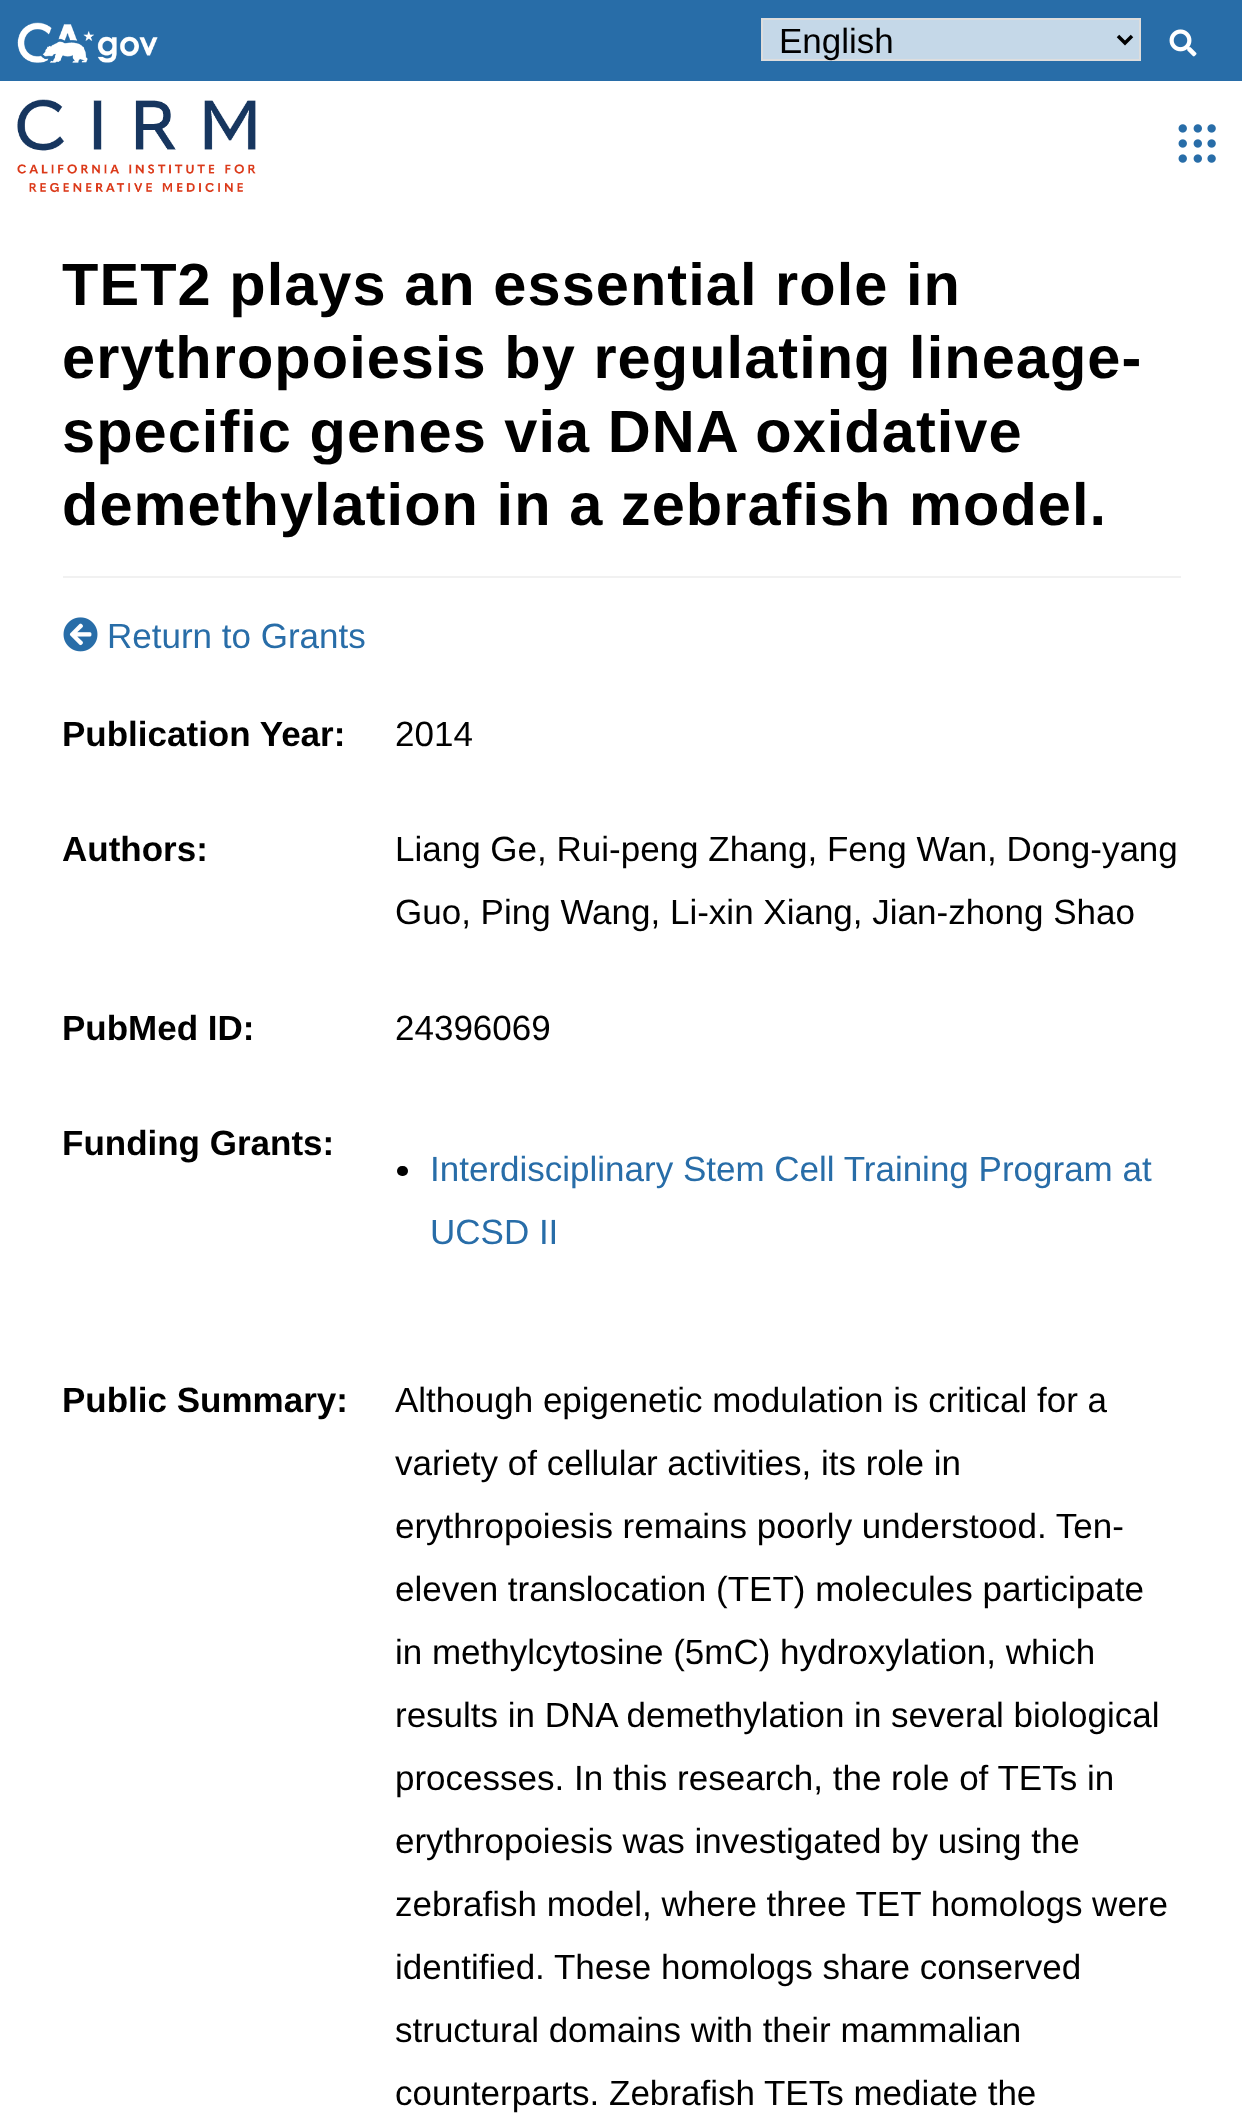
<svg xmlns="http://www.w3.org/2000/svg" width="1242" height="2121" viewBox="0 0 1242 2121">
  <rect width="100%" height="100%" fill="rgb(255,255,255)"/>
  <rect x="0" y="0" width="1242" height="81" fill="rgb(40,109,168)"/>
  <image x="17" y="22" width="141" height="41" href="pic1.png"/>
  <rect x="762" y="19" width="378" height="41" fill="rgb(197,216,232)" stroke="rgb(221,221,221)" stroke-width="2"/>
  <path d="M1118 36L1125 43L1132 36" fill="none" stroke="rgb(0,0,0)" stroke-width="3.5"/>
  <text x="779" y="53" font-family="Liberation Sans" font-size="35" fill="rgb(0,0,0)">English</text>
  <image x="1169" y="29" width="28" height="28" href="pic2.png"/>
  <image x="17" y="99" width="239" height="94" href="pic3.png"/>
  <image x="1178" y="124" width="38" height="39" href="pic4.png"/>
  <rect x="63" y="576" width="1118" height="2" fill="rgb(241,241,241)"/>
  <g font-family="Liberation Sans" font-size="59.5" font-weight="bold" letter-spacing="1.05" fill="rgb(0,0,0)">
    <text>
      <tspan x="62" y="305">TET2 plays an essential role in</tspan>
      <tspan x="62" y="378">erythropoiesis by regulating lineage-</tspan>
      <tspan x="62" y="452">specific genes via DNA oxidative</tspan>
      <tspan x="62" y="525">demethylation in a zebrafish model.</tspan>
    </text>
  </g>
  <image x="63" y="617" width="35" height="35" href="pic5.png"/>
  <text x="107" y="648" font-family="Liberation Sans" font-size="35" fill="rgb(40,109,168)">Return to Grants</text>
  <text x="62" y="746" font-family="Liberation Sans" font-size="35" font-weight="bold" fill="rgb(0,0,0)">Publication Year:</text>
  <text x="395" y="746" font-family="Liberation Sans" font-size="35" fill="rgb(0,0,0)">2014</text>
  <text x="62" y="861" font-family="Liberation Sans" font-size="35" font-weight="bold" fill="rgb(0,0,0)">Authors:</text>
  <g font-family="Liberation Sans" font-size="35" fill="rgb(0,0,0)">
    <text>
      <tspan x="395" y="861">Liang Ge, Rui-peng Zhang, Feng Wan, Dong-yang</tspan>
      <tspan x="395" y="924">Guo, Ping Wang, Li-xin Xiang, Jian-zhong Shao</tspan>
    </text>
  </g>
  <text x="62" y="1040" font-family="Liberation Sans" font-size="35" font-weight="bold" fill="rgb(0,0,0)">PubMed ID:</text>
  <text x="395" y="1040" font-family="Liberation Sans" font-size="35" fill="rgb(0,0,0)">24396069</text>
  <text x="62" y="1155" font-family="Liberation Sans" font-size="35" font-weight="bold" fill="rgb(0,0,0)">Funding Grants:</text>
  <rect x="397" y="1166" width="11" height="10" rx="5" fill="rgb(0,0,0)"/>
  <g font-family="Liberation Sans" font-size="35" fill="rgb(40,109,168)">
    <text>
      <tspan x="430" y="1181">Interdisciplinary Stem Cell Training Program at</tspan>
      <tspan x="430" y="1244">UCSD II</tspan>
    </text>
  </g>
  <text x="62" y="1412" font-family="Liberation Sans" font-size="35" font-weight="bold" fill="rgb(0,0,0)">Public Summary:</text>
  <g font-family="Liberation Sans" font-size="35" fill="rgb(0,0,0)">
    <text>
      <tspan x="395" y="1412">Although epigenetic modulation is critical for a</tspan>
      <tspan x="395" y="1475">variety of cellular activities, its role in</tspan>
      <tspan x="395" y="1538">erythropoiesis remains poorly understood. Ten-</tspan>
      <tspan x="395" y="1601">eleven translocation (TET) molecules participate</tspan>
      <tspan x="395" y="1664">in methylcytosine (5mC) hydroxylation, which</tspan>
      <tspan x="395" y="1727">results in DNA demethylation in several biological</tspan>
      <tspan x="395" y="1790">processes. In this research, the role of TETs in</tspan>
      <tspan x="395" y="1853">erythropoiesis was investigated by using the</tspan>
      <tspan x="395" y="1916">zebrafish model, where three TET homologs were</tspan>
      <tspan x="395" y="1979">identified. These homologs share conserved</tspan>
      <tspan x="395" y="2042">structural domains with their mammalian</tspan>
      <tspan x="395" y="2105">counterparts. Zebrafish TETs mediate the</tspan>
    </text>
  </g>
</svg>
